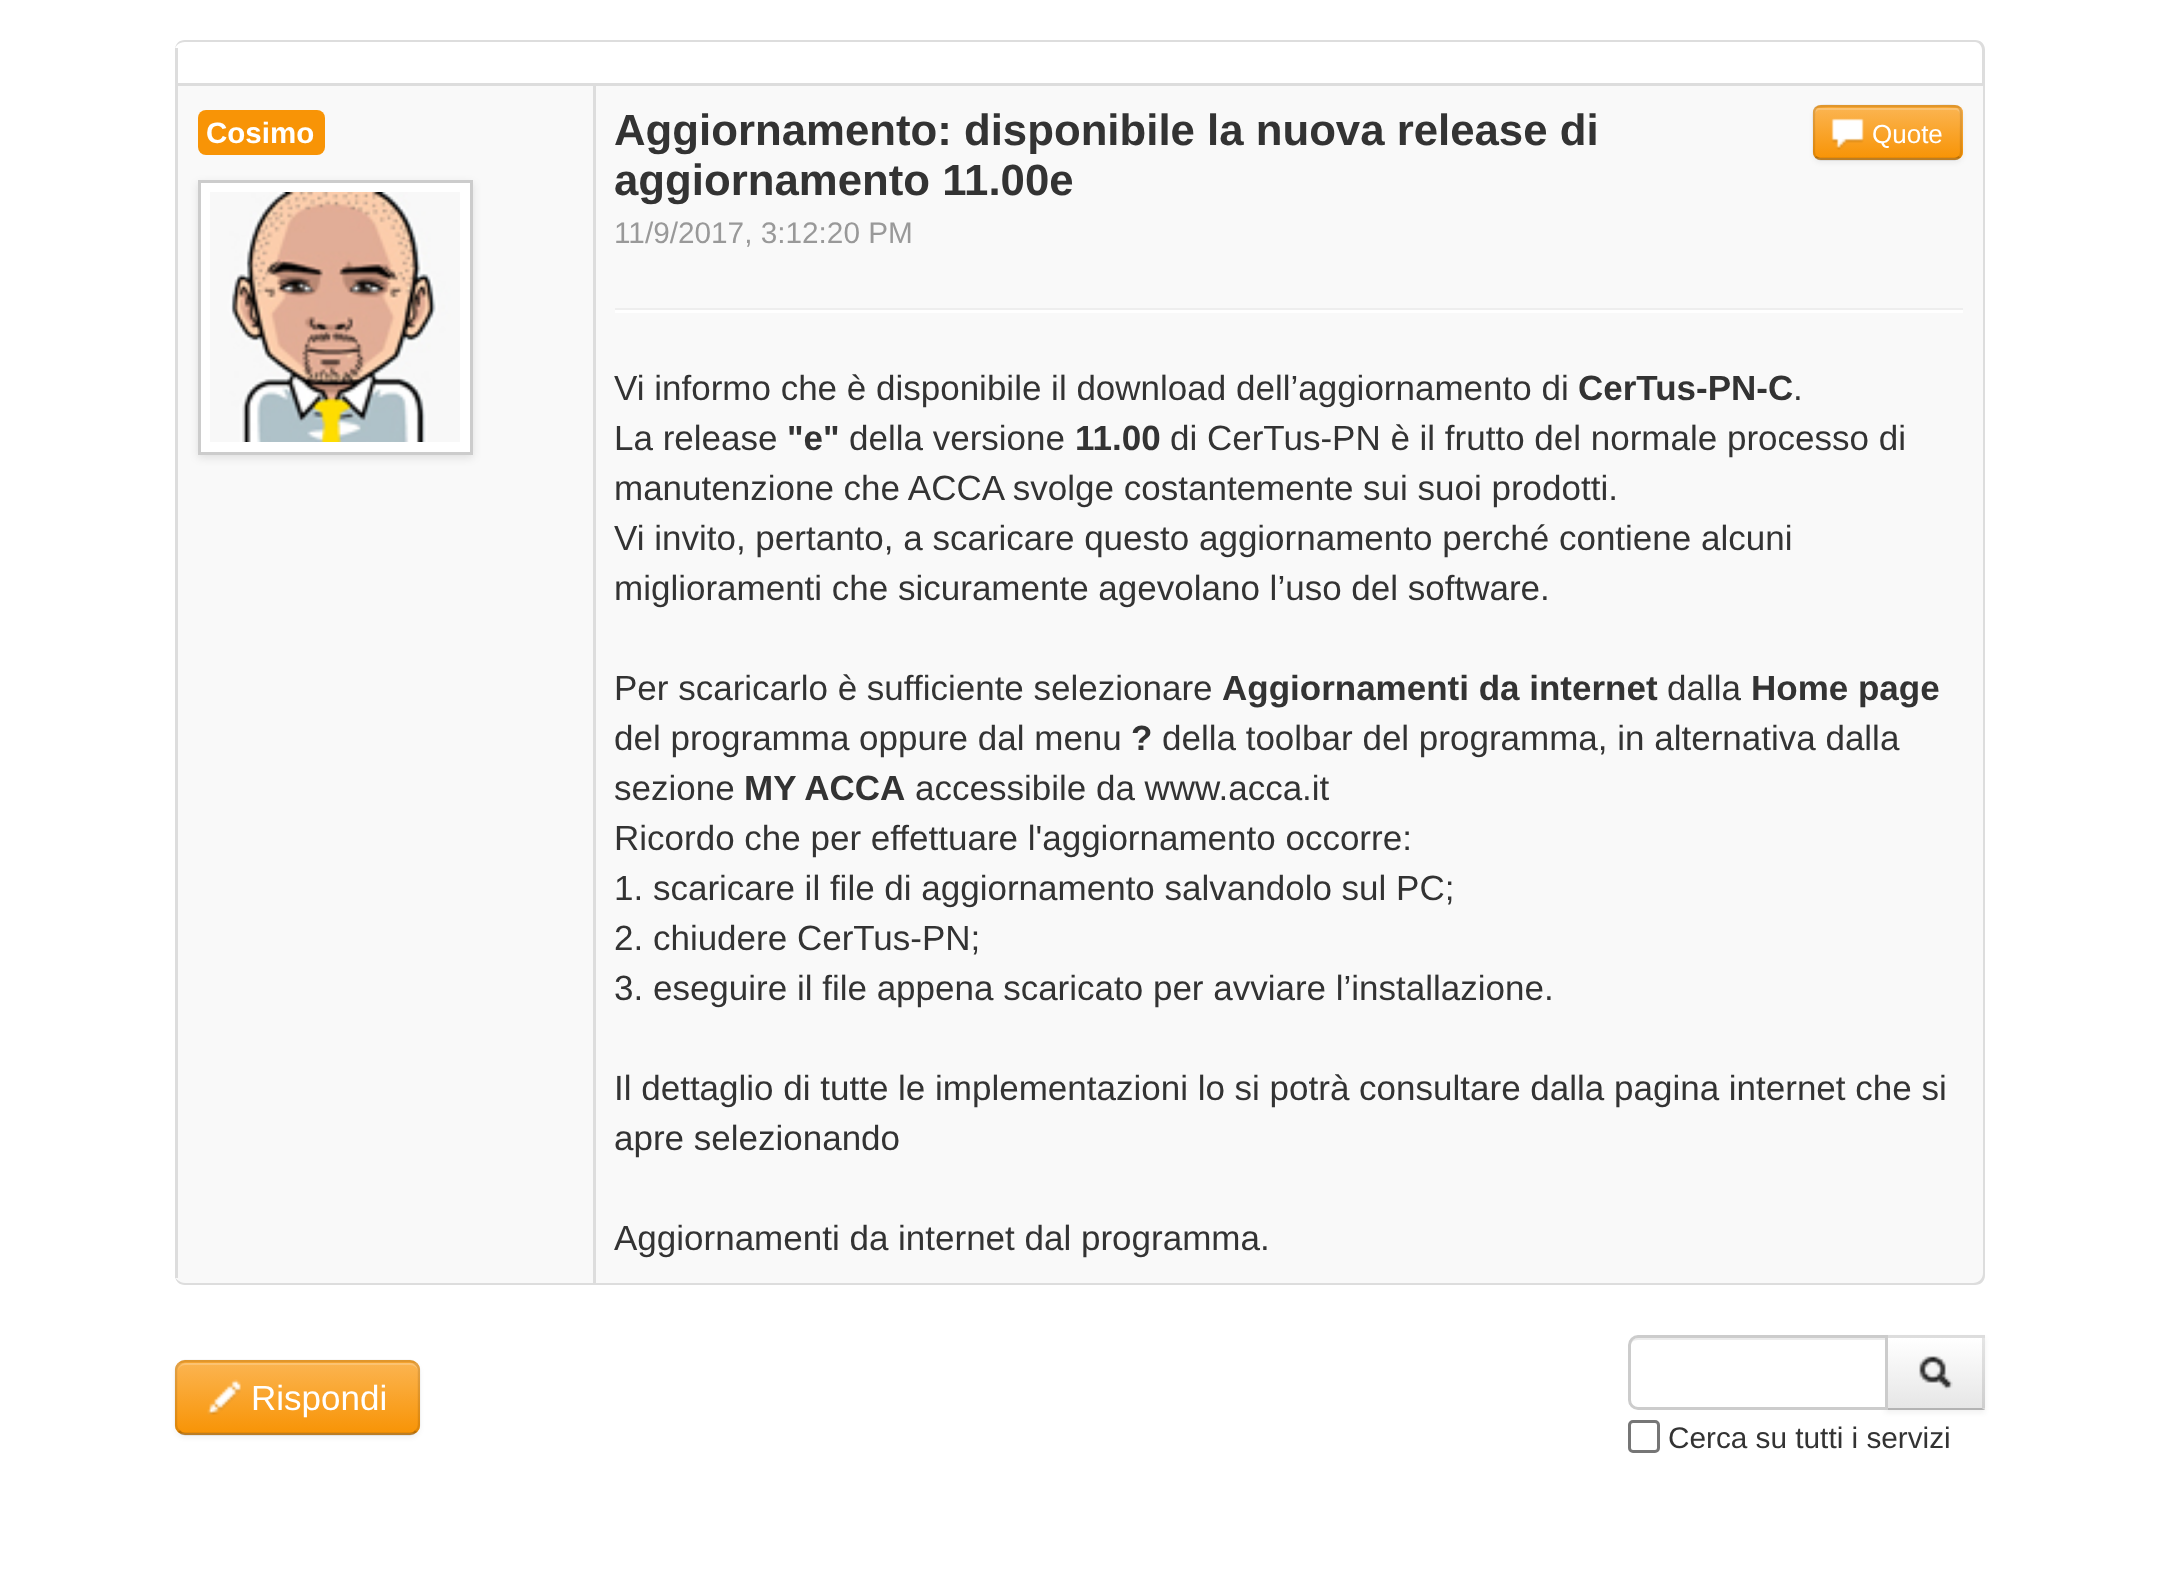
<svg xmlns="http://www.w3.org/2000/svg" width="2157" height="1583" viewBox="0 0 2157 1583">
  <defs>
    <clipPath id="clip1"><rect x="1813" y="105" width="150" height="55" rx="8"/></clipPath>
    <linearGradient id="g1" gradientUnits="userSpaceOnUse" x1="1888" y1="108" x2="1888" y2="158"><stop offset="0" stop-color="rgb(251,180,80)"/><stop offset="1" stop-color="rgb(248,148,6)"/></linearGradient>
    <clipPath id="clip2"><rect x="175" y="1360" width="245" height="75" rx="10"/></clipPath>
    <linearGradient id="g2" gradientUnits="userSpaceOnUse" x1="298" y1="1363" x2="298" y2="1433"><stop offset="0" stop-color="rgb(251,180,80)"/><stop offset="1" stop-color="rgb(248,148,6)"/></linearGradient>
    <linearGradient id="g3" gradientUnits="userSpaceOnUse" x1="1935" y1="1338" x2="1935" y2="1408"><stop offset="0" stop-color="rgb(255,255,255)"/><stop offset="1" stop-color="rgb(230,230,230)"/></linearGradient>
  </defs>
  <rect width="100%" height="100%" fill="rgb(255,255,255)"/>
  <path d="M185 40H1975C1981 40 1985 44 1985 50V1275C1985 1281 1981 1285 1975 1285H185C179 1285 175 1281 175 1275V50C175 44 179 40 185 40ZM185 42H1975C1979 42 1982 46 1982 50V1275C1982 1279 1979 1282 1975 1282H185C179 1282 175 1279 175 1275V50C175 46 179 42 185 42Z" fill="rgb(221,221,221)" fill-rule="evenodd"/>
  <rect x="175" y="48" width="3" height="35" fill="rgb(221,221,221)"/>
  <path d="M175 83H593V1283H185C179.5 1283 175 1278.5 175 1273Z" fill="rgb(249,249,249)"/>
  <rect x="175" y="83" width="418" height="3" fill="rgb(221,221,221)"/>
  <rect x="175" y="83" width="3" height="1195" fill="rgb(221,221,221)"/>
  <rect x="198" y="110" width="127" height="45" rx="8" fill="rgb(248,148,6)"/>
  <text x="206" y="143" font-family="Liberation Sans" font-size="29.5" font-weight="bold" fill="rgb(255,255,255)">Cosimo</text>
  <rect x="198" y="183" width="275" height="275" fill="rgba(0,0,0,0.1)" filter="blur(4px)"/>
  <rect x="199.5" y="181.5" width="272" height="272" fill="rgb(255,255,255)" stroke="rgb(204,204,204)" stroke-width="3"/>
  <image x="210" y="192" width="250" height="250" href="pic1.png"/>
  <path d="M593 83H1983V1273C1983 1278.5 1978.5 1283 1973 1283H593Z" fill="rgb(249,249,249)"/>
  <rect x="593" y="83" width="1390" height="3" fill="rgb(221,221,221)"/>
  <rect x="593" y="83" width="3" height="1200" fill="rgb(221,221,221)"/>
  <g font-family="Liberation Sans" font-size="43.75" font-weight="bold" fill="rgb(51,51,51)">
    <text>
      <tspan x="614" y="145">Aggiornamento: disponibile la nuova release di</tspan>
      <tspan x="614" y="195">aggiornamento 11.00e</tspan>
    </text>
  </g>
  <rect x="1813" y="108" width="150" height="55" rx="8" fill="rgba(0,0,0,0.05)" filter="blur(2.5px)"/>
  <rect x="1813" y="105" width="150" height="55" rx="8" fill="rgb(250,167,50)"/>
  <g clip-path="url(#clip1)">
    <rect x="1813" y="108" width="150" height="50" fill="url(#g1)"/>
  </g>
  <path d="M1820 110H1955C1958 110 1960 112 1960 115V113C1960 110 1958 108 1955 108H1820C1817 108 1815 110 1815 113V115C1815 112 1817 110 1820 110Z" fill="rgba(255,255,255,0.2)"/>
  <path d="M1959.5 157C1958 158 1956.5 159 1955 159H1820C1818.5 159 1817 158 1815.5 157" fill="none" stroke="rgba(0,0,0,0.25)" stroke-width="2.5"/>
  <path d="M1815.5 157C1813 154 1814 149 1814 146V132.5C1814 101.5 1809.5 106 1842.5 106H1932.5C1965.5 106 1961 101.5 1961 132.5V146C1961 149 1962 154 1959.5 157" fill="none" stroke="rgba(0,0,0,0.1)" stroke-width="2.5"/>
  <image x="1831" y="118" width="33" height="32" href="pic2.png"/>
  <text x="1872" y="143" font-family="Liberation Sans" font-size="26" fill="rgb(255,255,255)">Quote</text>
  <text x="614" y="243" font-family="Liberation Sans" font-size="29.75" fill="rgb(153,153,153)">11/9/2017, 3:12:20 PM</text>
  <rect x="615" y="308" width="1348" height="2" fill="rgb(238,238,238)"/>
  <rect x="615" y="310" width="1348" height="3" fill="rgb(255,255,255)"/>
  <text x="614" y="400" font-family="Liberation Sans" font-size="35" fill="rgb(51,51,51)">Vi informo che è disponibile il download dell’aggiornamento di</text>
  <text x="1578" y="400" font-family="Liberation Sans" font-size="35" font-weight="bold" fill="rgb(51,51,51)">CerTus-PN-C</text>
  <g font-family="Liberation Sans" font-size="35" fill="rgb(51,51,51)">
    <text x="1793" y="400">.</text>
    <text x="614" y="450">La release</text>
  </g>
  <text x="787" y="450" font-family="Liberation Sans" font-size="35" font-weight="bold" fill="rgb(51,51,51)">"e"</text>
  <text x="849" y="450" font-family="Liberation Sans" font-size="35" fill="rgb(51,51,51)">della versione</text>
  <text x="1075" y="450" font-family="Liberation Sans" font-size="35" font-weight="bold" fill="rgb(51,51,51)">11.00</text>
  <g font-family="Liberation Sans" font-size="35" fill="rgb(51,51,51)">
    <text x="1170" y="450">di CerTus-PN è il frutto del normale processo di</text>
    <text>
      <tspan x="614" y="500">manutenzione che ACCA svolge costantemente sui suoi prodotti.</tspan>
      <tspan x="614" y="550">Vi invito, pertanto, a scaricare questo aggiornamento perché contiene alcuni</tspan>
      <tspan x="614" y="600">miglioramenti che sicuramente agevolano l’uso del software.</tspan>
    </text>
    <text x="614" y="700">Per scaricarlo è sufficiente selezionare</text>
  </g>
  <text x="1222" y="700" font-family="Liberation Sans" font-size="35" font-weight="bold" fill="rgb(51,51,51)">Aggiornamenti da internet</text>
  <text x="1667" y="700" font-family="Liberation Sans" font-size="35" fill="rgb(51,51,51)">dalla</text>
  <text x="1751" y="700" font-family="Liberation Sans" font-size="35" font-weight="bold" fill="rgb(51,51,51)">Home page</text>
  <text x="614" y="750" font-family="Liberation Sans" font-size="35" fill="rgb(51,51,51)">del programma oppure dal menu</text>
  <text x="1131" y="750" font-family="Liberation Sans" font-size="35" font-weight="bold" fill="rgb(51,51,51)">?</text>
  <g font-family="Liberation Sans" font-size="35" fill="rgb(51,51,51)">
    <text x="1162" y="750">della toolbar del programma, in alternativa dalla</text>
    <text x="614" y="800">sezione</text>
  </g>
  <text x="744" y="800" font-family="Liberation Sans" font-size="35" font-weight="bold" fill="rgb(51,51,51)">MY ACCA</text>
  <g font-family="Liberation Sans" font-size="35" fill="rgb(51,51,51)">
    <text x="915" y="800">accessibile da www.acca.it</text>
    <text>
      <tspan x="614" y="850">Ricordo che per effettuare l'aggiornamento occorre:</tspan>
      <tspan x="614" y="900">1. scaricare il file di aggiornamento salvandolo sul PC;</tspan>
      <tspan x="614" y="950">2. chiudere CerTus-PN;</tspan>
      <tspan x="614" y="1000">3. eseguire il file appena scaricato per avviare l’installazione.</tspan>
    </text>
    <text>
      <tspan x="614" y="1100">Il dettaglio di tutte le implementazioni lo si potrà consultare dalla pagina internet che si</tspan>
      <tspan x="614" y="1150">apre selezionando</tspan>
    </text>
    <text x="614" y="1250">Aggiornamenti da internet dal programma.</text>
  </g>
  <rect x="175" y="1363" width="245" height="75" rx="10" fill="rgba(0,0,0,0.05)" filter="blur(2.5px)"/>
  <rect x="175" y="1360" width="245" height="75" rx="10" fill="rgb(250,167,50)"/>
  <g clip-path="url(#clip2)">
    <rect x="175" y="1363" width="245" height="70" fill="url(#g2)"/>
  </g>
  <path d="M185 1365H410C414 1365 418 1368 418 1372V1371C418 1367 414 1363 410 1363H186C182 1363 178 1367 178 1371V1372C178 1368 181 1365 185 1365Z" fill="rgba(255,255,255,0.2)"/>
  <path d="M416 1431C414.5 1433 412.5 1434 410 1434H185C182.5 1434 180.5 1433 179 1431" fill="none" stroke="rgba(0,0,0,0.25)" stroke-width="2.5"/>
  <path d="M179 1431C177 1429.5 176 1427.5 176 1425V1370C176 1367.5 177 1365.5 179 1364C180.5 1362 182.5 1361 185 1361H410C412.5 1361 414.5 1362 416 1364C418 1365.5 419 1367.5 419 1370V1425C419 1427.5 418 1429.5 416 1431" fill="none" stroke="rgba(0,0,0,0.1)" stroke-width="2.5"/>
  <image x="207" y="1379" width="34" height="36" href="pic3.png"/>
  <text x="251" y="1410" font-family="Liberation Sans" font-size="35" fill="rgb(255,255,255)">Rispondi</text>
  <rect x="1885" y="1338" width="100" height="75" fill="rgba(0,0,0,0.05)" filter="blur(2.5px)"/>
  <rect x="1982" y="1335" width="3" height="75" fill="rgb(245,245,245)"/>
  <path d="M1885 1335H1985L1982 1338H1888Z" fill="rgb(221,221,221)"/>
  <rect x="1888" y="1338" width="97" height="70" fill="url(#g3)"/>
  <path d="M1985 1335V1410L1982 1408V1338Z" fill="rgba(0,0,0,0.1)"/>
  <path d="M1985 1410H1885L1888 1408H1982Z" fill="rgb(179,179,179)"/>
  <path d="M1638 1335H1888V1410H1638C1632.5 1410 1628 1405.5 1628 1400V1345C1628 1339.5 1632.5 1335 1638 1335Z" fill="rgb(255,255,255)"/>
  <path d="M1638 1340H1885V1338H1638C1634 1338 1630 1342 1630 1346V1348C1630 1343 1633 1340 1638 1340Z" fill="rgb(236,236,236)"/>
  <path d="M1638 1336.5H1886.5V1408.5H1638C1633.5 1408.5 1629.5 1404.5 1629.5 1400V1345C1629.5 1340.5 1633.5 1336.5 1638 1336.5Z" fill="none" stroke="rgb(204,204,204)" stroke-width="3"/>
  <image x="1919" y="1356" width="34" height="34" href="pic4.png"/>
  <rect x="1629.5" y="1421.5" width="29" height="30" rx="3.5" fill="none" stroke="rgb(118,118,118)" stroke-width="3"/>
  <text x="1668" y="1448" font-family="Liberation Sans" font-size="29.75" fill="rgb(51,51,51)">Cerca su tutti i servizi</text>
</svg>
